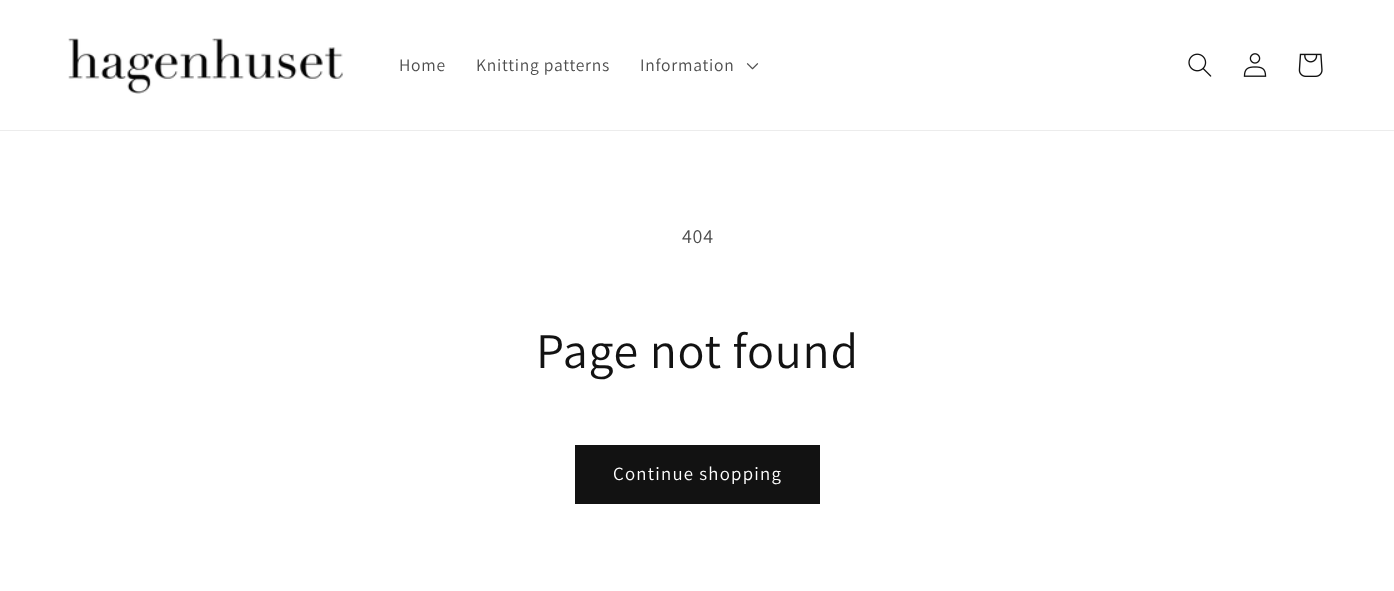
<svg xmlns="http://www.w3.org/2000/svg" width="1394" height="591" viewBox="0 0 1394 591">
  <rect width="100%" height="100%" fill="rgb(255,255,255)"/>
  <rect x="0" y="130" width="1394" height="1" fill="rgb(236,236,236)"/>
  <image x="68" y="38" width="276" height="56" href="pic1.png"/>
  <g font-family="Assistant" font-size="17.5" letter-spacing="0.75" fill="rgb(77,77,77)">
    <text x="399" y="71">Home</text>
    <text x="476" y="71">Knitting patterns</text>
    <text x="640" y="71">Information</text>
  </g>
  <image x="746" y="63" width="13" height="7" href="pic2.png"/>
  <image x="1188" y="53" width="24" height="24" href="pic3.png"/>
  <image x="1243" y="53" width="24" height="24" href="pic4.png"/>
  <image x="1298" y="53" width="25" height="24" href="pic5.png"/>
  <text x="682" y="243" font-family="Assistant" font-size="20" letter-spacing="0.75" fill="rgb(77,77,77)">404</text>
  <text x="536" y="368" font-family="Assistant" font-size="50" letter-spacing="0.75" fill="rgb(18,18,18)">Page not found</text>
  <rect x="575" y="445" width="245" height="59" fill="rgb(18,18,18)"/>
  <text x="613" y="480" font-family="Assistant" font-size="18.75" letter-spacing="1.25" fill="rgb(255,255,255)">Continue shopping</text>
</svg>
